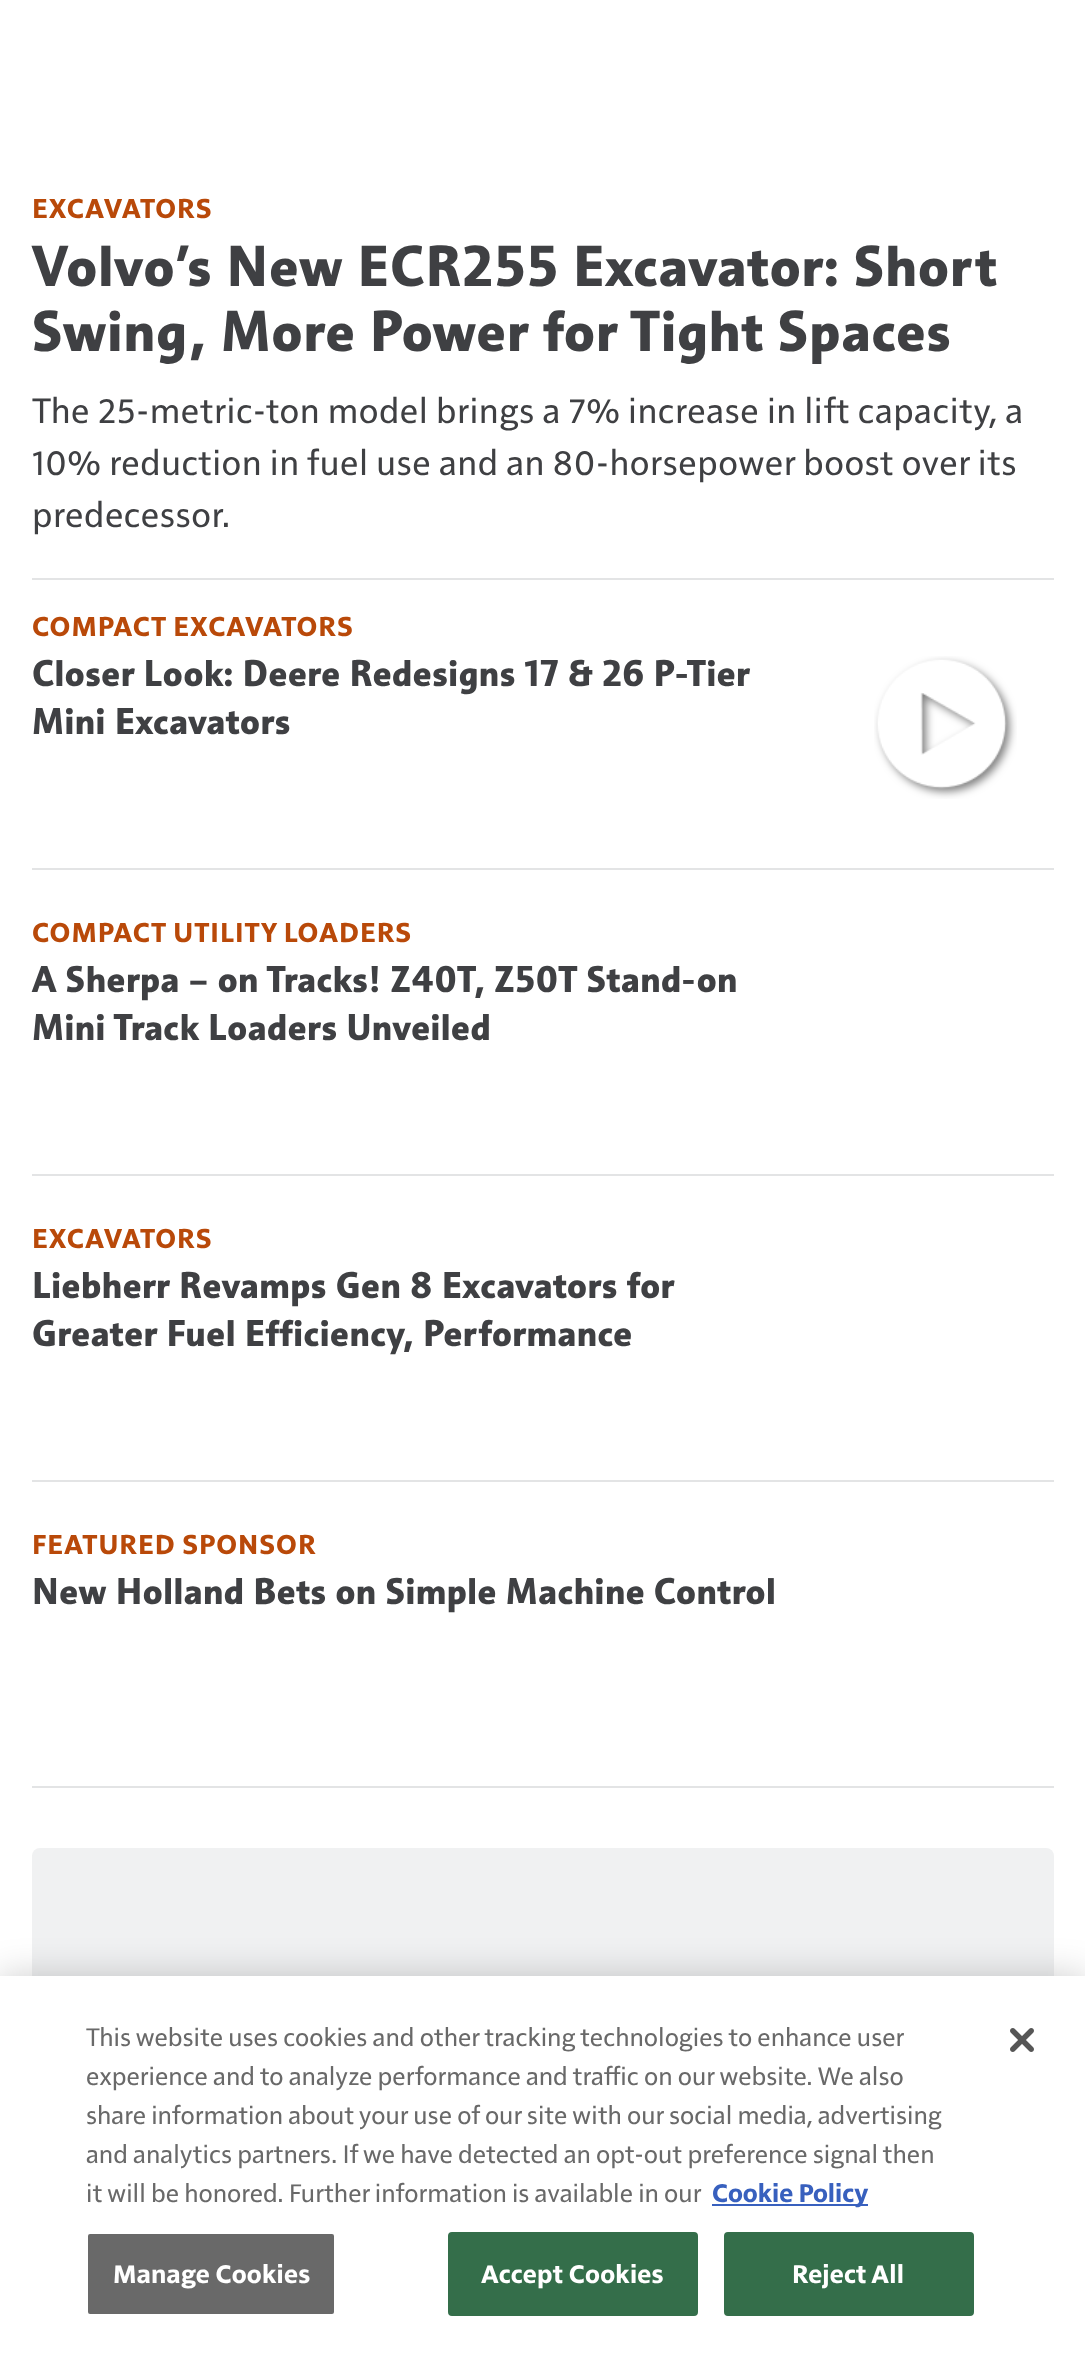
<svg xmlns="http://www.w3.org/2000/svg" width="1085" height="2355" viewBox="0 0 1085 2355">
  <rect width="100%" height="100%" fill="rgb(255,255,255)"/>
  <rect x="32" y="578" width="1022" height="2" fill="rgb(227,228,229)"/>
  <text x="32" y="218" font-family="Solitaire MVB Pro" font-size="28" font-weight="bold" letter-spacing="1" fill="rgb(185,73,9)">EXCAVATORS</text>
  <g font-family="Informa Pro" font-size="56" font-weight="bold" letter-spacing="1" fill="rgb(63,64,67)">
    <text>
      <tspan x="32" y="286">Volvo’s New ECR255 Excavator: Short</tspan>
      <tspan x="32" y="351">Swing, More Power for Tight Spaces</tspan>
    </text>
  </g>
  <g font-family="Solitaire MVB Pro" font-size="36" letter-spacing="0.5" fill="rgb(63,64,67)">
    <text>
      <tspan x="32" y="423">The 25-metric-ton model brings a 7% increase in lift capacity, a</tspan>
      <tspan x="32" y="475">10% reduction in fuel use and an 80-horsepower boost over its</tspan>
      <tspan x="32" y="527">predecessor.</tspan>
    </text>
  </g>
  <rect x="32" y="868" width="1022" height="2" fill="rgb(227,228,229)"/>
  <text x="32" y="636" font-family="Solitaire MVB Pro" font-size="28" font-weight="bold" letter-spacing="1" fill="rgb(185,73,9)">COMPACT EXCAVATORS</text>
  <g font-family="Informa Pro" font-size="36" font-weight="bold" letter-spacing="0.5" fill="rgb(63,64,67)">
    <text>
      <tspan x="32" y="686">Closer Look: Deere Redesigns 17 &amp; 26 P-Tier</tspan>
      <tspan x="32" y="734">Mini Excavators</tspan>
    </text>
  </g>
  <image x="874" y="656" width="143" height="143" href="pic1.png"/>
  <rect x="32" y="1174" width="1022" height="2" fill="rgb(227,228,229)"/>
  <text x="32" y="942" font-family="Solitaire MVB Pro" font-size="28" font-weight="bold" letter-spacing="1" fill="rgb(185,73,9)">COMPACT UTILITY LOADERS</text>
  <g font-family="Informa Pro" font-size="36" font-weight="bold" letter-spacing="0.5" fill="rgb(63,64,67)">
    <text>
      <tspan x="32" y="992">A Sherpa – on Tracks! Z40T, Z50T Stand-on</tspan>
      <tspan x="32" y="1040">Mini Track Loaders Unveiled</tspan>
    </text>
  </g>
  <rect x="32" y="1480" width="1022" height="2" fill="rgb(227,228,229)"/>
  <text x="32" y="1248" font-family="Solitaire MVB Pro" font-size="28" font-weight="bold" letter-spacing="1" fill="rgb(185,73,9)">EXCAVATORS</text>
  <g font-family="Informa Pro" font-size="36" font-weight="bold" letter-spacing="0.5" fill="rgb(63,64,67)">
    <text>
      <tspan x="32" y="1298">Liebherr Revamps Gen 8 Excavators for</tspan>
      <tspan x="32" y="1346">Greater Fuel Efficiency, Performance</tspan>
    </text>
  </g>
  <rect x="32" y="1786" width="1022" height="2" fill="rgb(227,228,229)"/>
  <text x="32" y="1554" font-family="Solitaire MVB Pro" font-size="28" font-weight="bold" letter-spacing="1" fill="rgb(185,73,9)">FEATURED SPONSOR</text>
  <text x="32" y="1604" font-family="Informa Pro" font-size="36" font-weight="bold" letter-spacing="0.5" fill="rgb(63,64,67)">New Holland Bets on Simple Machine Control</text>
  <rect x="32" y="1848" width="1022" height="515" rx="8" fill="rgb(240,241,242)"/>
  <rect x="0" y="1976" width="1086" height="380" fill="rgba(0,0,0,0.2)" filter="blur(18px)"/>
  <rect x="0" y="1976" width="1085" height="379" fill="rgb(255,255,255)"/>
  <g font-family="Solitaire MVB Pro" font-size="26" fill="rgb(105,105,105)">
    <text>
      <tspan x="86" y="2046">This website uses cookies and other tracking technologies to enhance user</tspan>
      <tspan x="86" y="2085">experience and to analyze performance and traffic on our website. We also</tspan>
      <tspan x="86" y="2124">share information about your use of our site with our social media, advertising</tspan>
      <tspan x="86" y="2163">and analytics partners. If we have detected an opt-out preference signal then</tspan>
      <tspan x="86" y="2202">it will be honored. Further information is available in our</tspan>
    </text>
  </g>
  <rect x="712" y="2204" width="156" height="2" fill="rgb(56,96,190)"/>
  <text x="712" y="2202" font-family="Solitaire MVB Pro" font-size="26" font-weight="bold" fill="rgb(56,96,190)">Cookie Policy</text>
  <rect x="87" y="2233" width="248" height="82" rx="3" fill="rgb(105,105,105)" stroke="rgb(255,255,255)" stroke-width="2"/>
  <text x="113" y="2283" font-family="Solitaire MVB Pro" font-size="26" font-weight="bold" letter-spacing="0.25" fill="rgb(255,255,255)">Manage Cookies</text>
  <rect x="449" y="2233" width="248" height="82" rx="3" fill="rgb(52,110,74)" stroke="rgb(52,110,74)" stroke-width="2"/>
  <text x="481" y="2283" font-family="Solitaire MVB Pro" font-size="26" font-weight="bold" letter-spacing="0.25" fill="rgb(255,255,255)">Accept Cookies</text>
  <rect x="725" y="2233" width="248" height="82" rx="3" fill="rgb(52,110,74)" stroke="rgb(52,110,74)" stroke-width="2"/>
  <text x="792" y="2283" font-family="Solitaire MVB Pro" font-size="26" font-weight="bold" letter-spacing="0.25" fill="rgb(255,255,255)">Reject All</text>
  <image x="1010" y="2028" width="24" height="24" href="pic2.png"/>
</svg>
